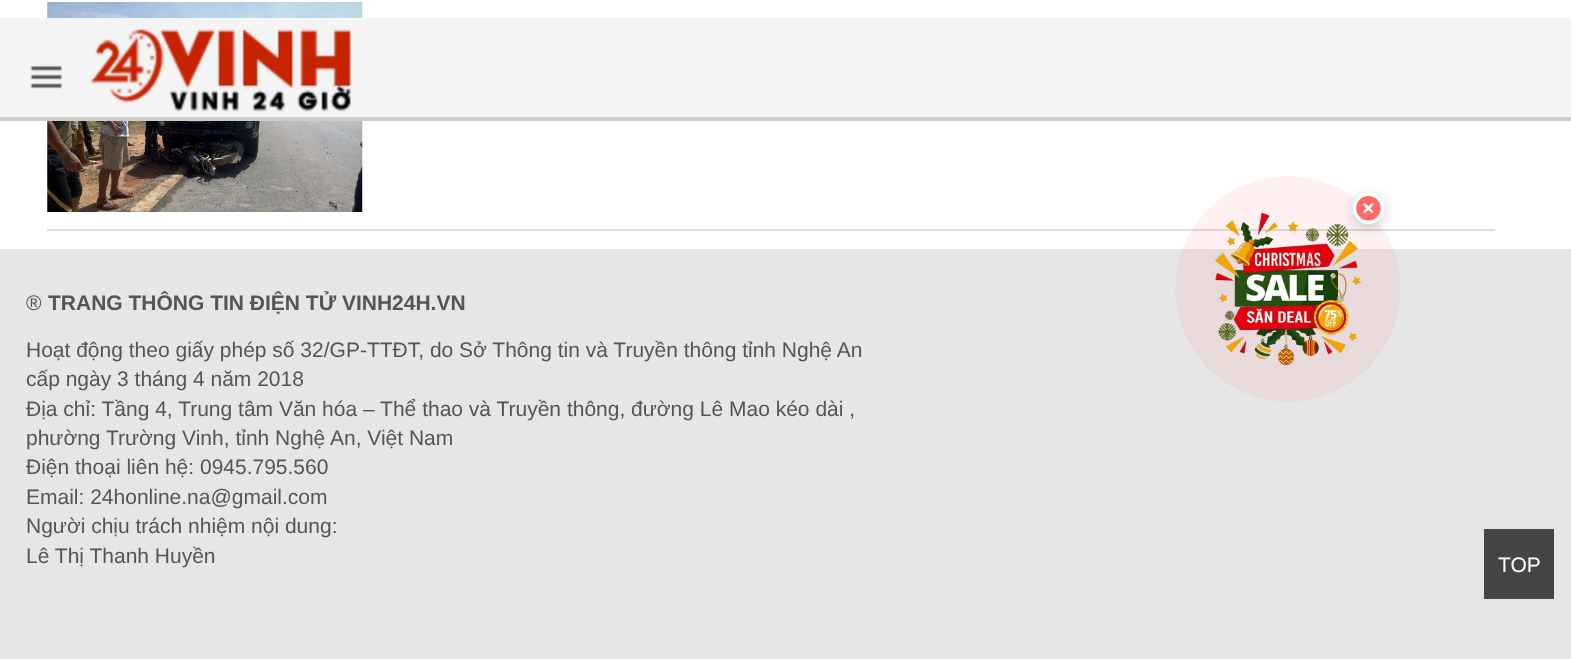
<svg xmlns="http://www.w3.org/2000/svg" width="1571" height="659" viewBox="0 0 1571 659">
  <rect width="100%" height="100%" fill="rgb(255,255,255)"/>
  <rect x="47" y="229" width="1448" height="2" fill="rgb(221,221,221)"/>
  <image x="47" y="2" width="316" height="210" href="pic1.png"/>
  <rect x="0" y="18" width="1571" height="99" fill="rgb(244,244,244)"/>
  <rect x="0" y="117" width="1571" height="4" fill="rgb(204,204,204)"/>
  <image x="30" y="65" width="32" height="24" href="pic2.png"/>
  <image x="90" y="29" width="261" height="83" href="pic3.png"/>
  <rect x="0" y="249" width="1571" height="410" fill="rgb(230,230,230)"/>
  <text x="26" y="310" font-family="Liberation Sans" font-size="21" fill="rgb(85,85,85)">®</text>
  <text x="48" y="310" font-family="Liberation Sans" font-size="21" font-weight="bold" fill="rgb(85,85,85)">TRANG THÔNG TIN ĐIỆN TỬ VINH24H.VN</text>
  <g font-family="Liberation Sans" font-size="21" fill="rgb(85,85,85)">
    <text>
      <tspan x="26" y="357">Hoạt động theo giấy phép số 32/GP-TTĐT, do Sở Thông tin và Truyền thông tỉnh Nghệ An</tspan>
      <tspan x="26" y="386">cấp ngày 3 tháng 4 năm 2018</tspan>
      <tspan x="26" y="416">Địa chỉ: Tầng 4, Trung tâm Văn hóa – Thể thao và Truyền thông, đường Lê Mao kéo dài ,</tspan>
      <tspan x="26" y="445">phường Trường Vinh, tỉnh Nghệ An, Việt Nam</tspan>
      <tspan x="26" y="474">Điện thoại liên hệ: 0945.795.560</tspan>
      <tspan x="26" y="504">Email: 24honline.na@gmail.com</tspan>
      <tspan x="26" y="533">Người chịu trách nhiệm nội dung:</tspan>
      <tspan x="26" y="563">Lê Thị Thanh Huyền</tspan>
    </text>
  </g>
  <image x="1175" y="176" width="226" height="226" href="pic4.png"/>
  <rect x="1484" y="529" width="70" height="70" fill="rgb(69,69,69)"/>
  <text x="1498" y="572" font-family="Liberation Sans" font-size="21" fill="rgb(255,255,255)">TOP</text>
</svg>
